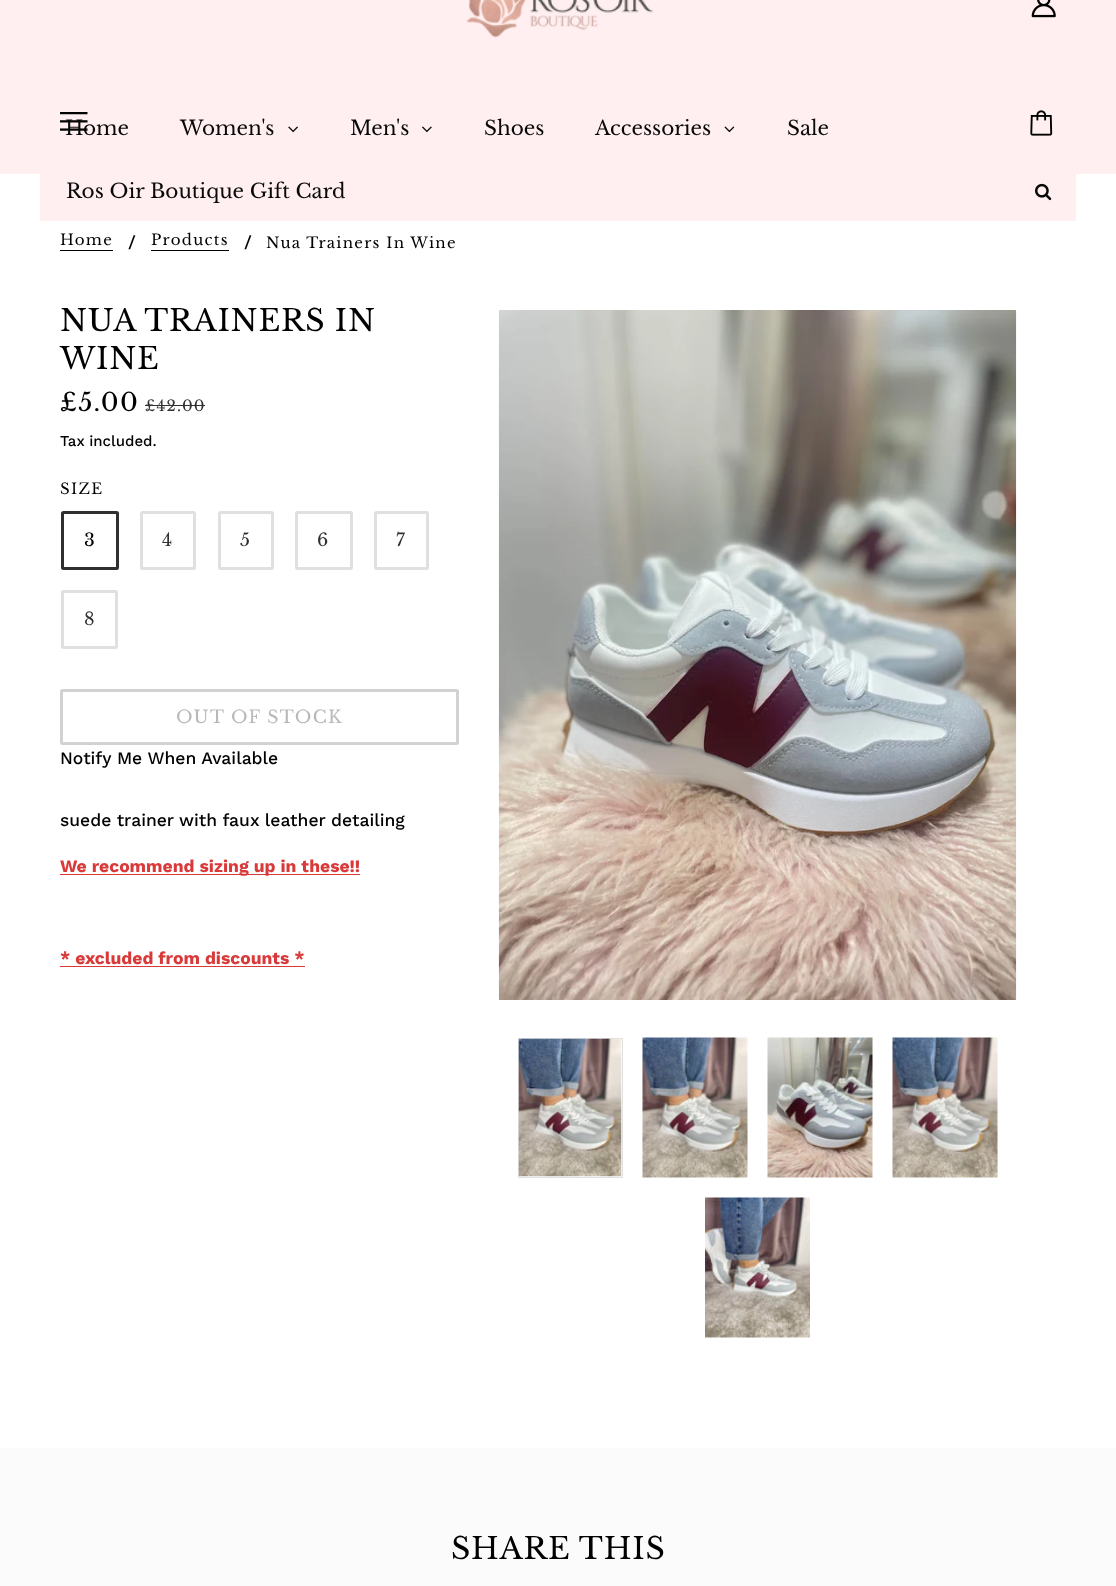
<svg xmlns="http://www.w3.org/2000/svg" width="1116" height="1586" viewBox="0 0 1116 1586">
  <rect width="100%" height="100%" fill="rgb(255,255,255)"/>
  <rect x="0" y="0" width="1116" height="174" fill="rgb(255,239,240)"/>
  <image x="466" y="0" width="188" height="38" href="pic1.png"/>
  <image x="1031" y="0" width="25" height="18" href="pic2.png"/>
  <image x="60" y="112" width="28" height="19" href="pic3.png"/>
  <rect x="40" y="174" width="1036" height="47" fill="rgb(255,239,240)"/>
  <g font-family="Libre Baskerville" font-size="20" fill="rgb(9,9,9)">
    <text x="65" y="135">Home</text>
    <text x="180" y="135">Women's</text>
  </g>
  <image x="288" y="126" width="10" height="7" href="pic4.png"/>
  <text x="350" y="135" font-family="Libre Baskerville" font-size="20" fill="rgb(9,9,9)">Men's</text>
  <image x="422" y="126" width="10" height="7" href="pic5.png"/>
  <g font-family="Libre Baskerville" font-size="20" fill="rgb(9,9,9)">
    <text x="484" y="135">Shoes</text>
    <text x="595" y="135">Accessories</text>
  </g>
  <image x="724" y="126" width="11" height="7" href="pic6.png"/>
  <g font-family="Libre Baskerville" font-size="20" fill="rgb(9,9,9)">
    <text x="787" y="135">Sale</text>
    <text x="66" y="198">Ros Oir Boutique Gift Card</text>
  </g>
  <image x="1035" y="183" width="17" height="18" href="pic7.png"/>
  <image x="1030" y="110" width="23" height="26" href="pic8.png"/>
  <text x="60" y="245" font-family="Libre Baskerville" font-size="15" letter-spacing="1.25" fill="rgb(0,0,0)">Home</text>
  <rect x="60" y="250" width="53" height="1" fill="rgb(0,0,0)"/>
  <text x="128" y="248" font-family="Work Sans" font-size="17.5" font-weight="500" fill="rgb(0,0,0)">/</text>
  <text x="151" y="245" font-family="Libre Baskerville" font-size="15" letter-spacing="1.25" fill="rgb(0,0,0)">Products</text>
  <rect x="151" y="250" width="78" height="1" fill="rgb(0,0,0)"/>
  <text x="244" y="248" font-family="Work Sans" font-size="17.5" font-weight="500" fill="rgb(0,0,0)">/</text>
  <text x="266" y="248" font-family="Libre Baskerville" font-size="15" letter-spacing="1.25" fill="rgb(0,0,0)">Nua Trainers In Wine</text>
  <g font-family="Libre Baskerville" font-size="30" letter-spacing="0.75" fill="rgb(0,0,0)">
    <text>
      <tspan x="60" y="331">NUA TRAINERS IN</tspan>
      <tspan x="60" y="369">WINE</tspan>
    </text>
  </g>
  <image x="498" y="310" width="519" height="690" href="pic9.png"/>
  <rect x="518.5" y="1038.5" width="104" height="139" fill="none" stroke="rgb(224,224,224)"/>
  <image x="518" y="1038" width="104" height="139" href="pic10.png"/>
  <image x="642" y="1037" width="106" height="141" href="pic11.png"/>
  <image x="767" y="1037" width="106" height="141" href="pic12.png"/>
  <image x="892" y="1037" width="106" height="141" href="pic13.png"/>
  <image x="705" y="1197" width="105" height="141" href="pic14.png"/>
  <text x="60" y="411" font-family="Libre Baskerville" font-size="25" letter-spacing="1.25" fill="rgb(0,0,0)">£5.00</text>
  <text x="145" y="411" font-family="Libre Baskerville" font-size="15" letter-spacing="1.25" fill="rgb(48,48,48)">£42.00</text>
  <rect x="145" y="405" width="60" height="1" fill="rgb(48,48,48)"/>
  <text x="60" y="446" font-family="Work Sans" font-size="15" font-weight="500" fill="rgb(0,0,0)">Tax included.</text>
  <text x="60" y="494" font-family="Libre Baskerville" font-size="15" letter-spacing="1.25" fill="rgb(0,0,0)">SIZE</text>
  <rect x="62.5" y="512.5" width="55" height="56" rx="1" fill="none" stroke="rgb(48,48,48)" stroke-width="3"/>
  <text x="84" y="546" font-family="Libre Baskerville" font-size="17.5" letter-spacing="1.25" fill="rgb(0,0,0)">3</text>
  <rect x="141.5" y="512.5" width="53" height="56" rx="1" fill="none" stroke="rgb(224,224,224)" stroke-width="3"/>
  <text x="162" y="546" font-family="Libre Baskerville" font-size="17.5" letter-spacing="1.25" fill="rgb(48,48,48)">4</text>
  <rect x="219.5" y="512.5" width="53" height="56" rx="1" fill="none" stroke="rgb(224,224,224)" stroke-width="3"/>
  <text x="240" y="546" font-family="Libre Baskerville" font-size="17.5" letter-spacing="1.25" fill="rgb(48,48,48)">5</text>
  <rect x="296.5" y="512.5" width="55" height="56" rx="1" fill="none" stroke="rgb(224,224,224)" stroke-width="3"/>
  <text x="317" y="546" font-family="Libre Baskerville" font-size="17.5" letter-spacing="1.25" fill="rgb(48,48,48)">6</text>
  <rect x="375.5" y="512.5" width="52" height="56" rx="1" fill="none" stroke="rgb(224,224,224)" stroke-width="3"/>
  <text x="396" y="546" font-family="Libre Baskerville" font-size="17.5" letter-spacing="1.25" fill="rgb(48,48,48)">7</text>
  <rect x="62.5" y="591.5" width="54" height="56" rx="1" fill="none" stroke="rgb(224,224,224)" stroke-width="3"/>
  <text x="84" y="625" font-family="Libre Baskerville" font-size="17.5" letter-spacing="1.25" fill="rgb(48,48,48)">8</text>
  <rect x="61.5" y="690.5" width="396" height="53" rx="1" fill="none" stroke="rgb(210,210,210)" stroke-width="3"/>
  <text x="176" y="723" font-family="Libre Baskerville" font-size="17.5" letter-spacing="1.25" fill="rgb(185,185,185)">OUT OF STOCK</text>
  <g font-family="Work Sans" font-size="17.5" font-weight="500" fill="rgb(0,0,0)">
    <text x="60" y="764">Notify Me When Available</text>
    <text x="60" y="826">suede trainer with faux leather detailing</text>
  </g>
  <rect x="60" y="874" width="300" height="1" fill="rgb(217,57,57)"/>
  <g font-family="Work Sans" font-size="17.5" font-weight="bold" fill="rgb(217,57,57)">
    <text x="60" y="872">We recommend sizing up in these!!</text>
    <text x="60" y="964">* excluded from discounts *</text>
  </g>
  <rect x="60" y="966" width="245" height="1" fill="rgb(217,57,57)"/>
  <rect x="0" y="1448" width="1116" height="138" fill="rgb(252,251,252)"/>
  <text x="451" y="1559" font-family="Libre Baskerville" font-size="30" letter-spacing="0.75" fill="rgb(0,0,0)">SHARE THIS</text>
</svg>
